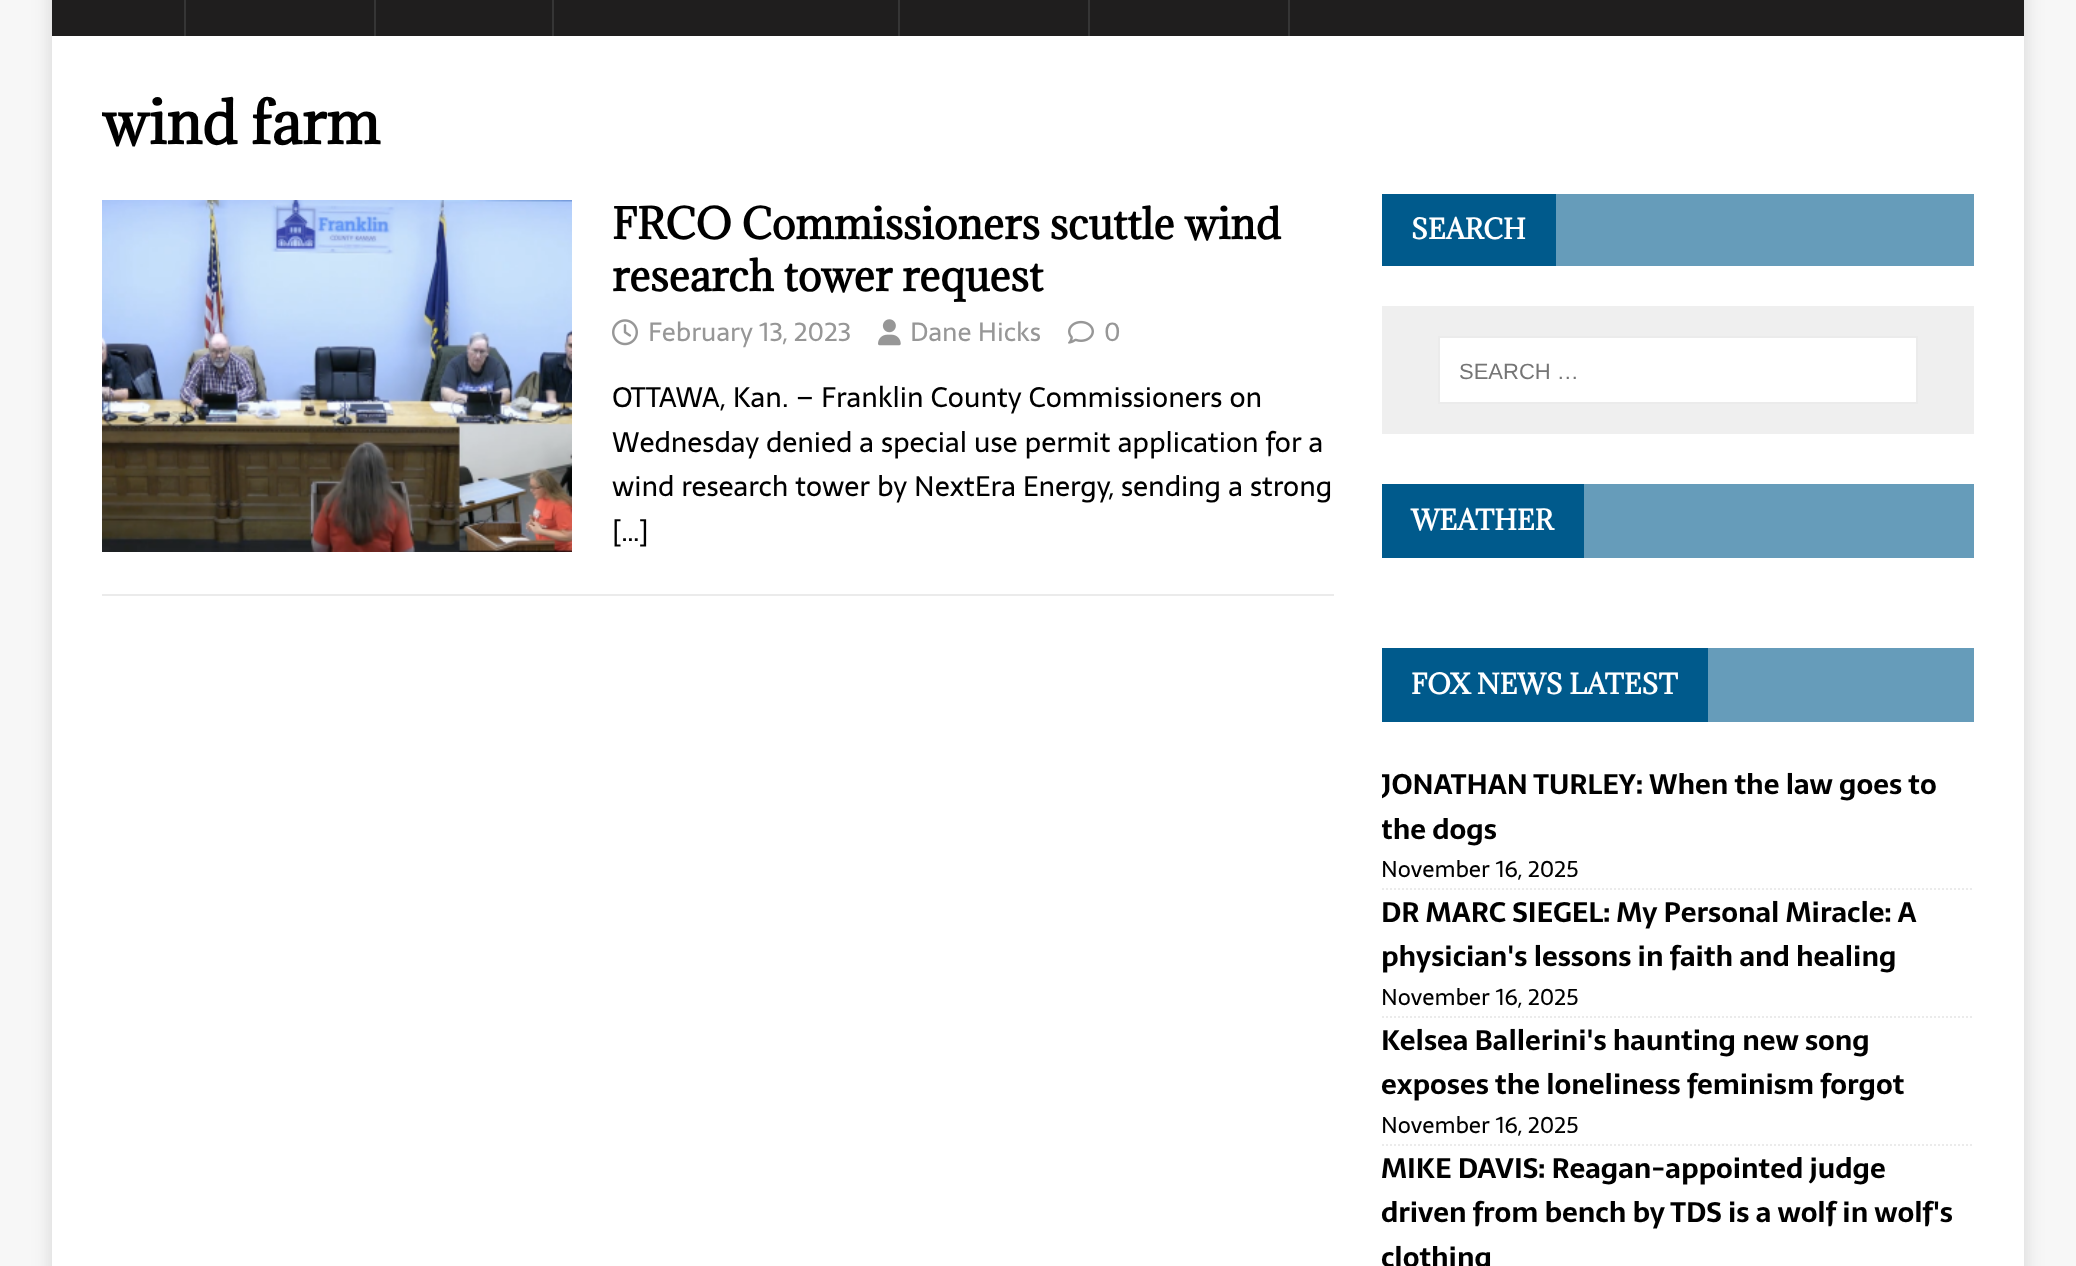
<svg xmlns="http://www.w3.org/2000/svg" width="2076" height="1266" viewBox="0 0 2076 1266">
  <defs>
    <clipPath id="clip1"><rect x="102" y="86" width="1232" height="550"/></clipPath>
    <clipPath id="clip2"><rect x="1382" y="762" width="592" height="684"/></clipPath>
  </defs>
  <rect width="100%" height="100%" fill="rgb(247,247,247)"/>
  <rect x="52" y="-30" width="1972" height="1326" fill="rgba(50,50,50,0.17)" filter="blur(10px)"/>
  <rect x="52" y="0" width="1972" height="36" fill="rgb(31,30,30)"/>
  <rect x="184" y="0" width="2" height="36" fill="rgb(53,53,53)"/>
  <rect x="374" y="0" width="2" height="36" fill="rgb(53,53,53)"/>
  <rect x="552" y="0" width="2" height="36" fill="rgb(53,53,53)"/>
  <rect x="898" y="0" width="2" height="36" fill="rgb(53,53,53)"/>
  <rect x="1088" y="0" width="2" height="36" fill="rgb(53,53,53)"/>
  <rect x="1288" y="0" width="2" height="36" fill="rgb(53,53,53)"/>
  <rect x="52" y="36" width="1972" height="1230" fill="rgb(255,255,255)"/>
  <g clip-path="url(#clip1)">
    <text x="102" y="144" font-family="Adamina" font-size="56" font-weight="bold" fill="rgb(0,0,0)">wind farm</text>
  </g>
  <rect x="102" y="594" width="1232" height="2" fill="rgb(235,235,235)"/>
  <image x="102" y="200" width="470" height="352" href="pic1.png"/>
  <g font-family="Adamina" font-size="40" font-weight="bold" fill="rgb(0,0,0)">
    <text>
      <tspan x="612" y="239">FRCO Commissioners scuttle wind</tspan>
      <tspan x="612" y="291">research tower request</tspan>
    </text>
  </g>
  <image x="612" y="319" width="26" height="27" href="pic2.png"/>
  <text x="648" y="341" font-family="Sarala" font-size="26" fill="rgb(151,151,151)">February 13, 2023</text>
  <image x="878" y="319" width="23" height="27" href="pic3.png"/>
  <text x="910" y="341" font-family="Sarala" font-size="26" fill="rgb(151,151,151)">Dane Hicks</text>
  <image x="1068" y="320" width="26" height="24" href="pic4.png"/>
  <text x="1104" y="341" font-family="Sarala" font-size="26" fill="rgb(151,151,151)">0</text>
  <g font-family="Sarala" font-size="28" fill="rgb(0,0,0)">
    <text>
      <tspan x="612" y="407">OTTAWA, Kan. – Franklin County Commissioners on</tspan>
      <tspan x="612" y="452">Wednesday denied a special use permit application for a</tspan>
      <tspan x="612" y="496">wind research tower by NextEra Energy, sending a strong</tspan>
      <tspan x="612" y="541">[…]</tspan>
    </text>
  </g>
  <rect x="1556" y="194" width="418" height="72" fill="rgb(102,156,186)"/>
  <rect x="1382" y="194" width="174" height="72" fill="rgb(0,90,140)"/>
  <text x="1411" y="239" font-family="Adamina" font-size="26" font-weight="bold" fill="rgb(255,255,255)">SEARCH</text>
  <rect x="1382" y="306" width="592" height="128" fill="rgb(239,239,239)"/>
  <rect x="1439" y="337" width="478" height="66" fill="rgb(255,255,255)" stroke="rgb(235,235,235)" stroke-width="2"/>
  <text x="1459" y="379" font-family="Liberation Sans" font-size="22" fill="rgb(117,117,117)">SEARCH …</text>
  <rect x="1584" y="484" width="390" height="74" fill="rgb(102,156,186)"/>
  <rect x="1382" y="484" width="202" height="74" fill="rgb(0,90,140)"/>
  <text x="1411" y="530" font-family="Adamina" font-size="26" font-weight="bold" fill="rgb(255,255,255)">WEATHER</text>
  <rect x="1708" y="648" width="266" height="74" fill="rgb(102,156,186)"/>
  <rect x="1382" y="648" width="326" height="74" fill="rgb(0,90,140)"/>
  <text x="1411" y="694" font-family="Adamina" font-size="26" font-weight="bold" fill="rgb(255,255,255)">FOX NEWS LATEST</text>
  <path d="M1382 889H1974" fill="none" stroke="rgb(235,235,235)" stroke-width="2" stroke-dasharray="2 2"/>
  <g clip-path="url(#clip2)">
    <g font-family="Sarala" font-size="28" font-weight="bold" fill="rgb(0,0,0)">
      <text>
        <tspan x="1381" y="794">JONATHAN TURLEY: When the law goes to</tspan>
        <tspan x="1381" y="839">the dogs</tspan>
      </text>
    </g>
  </g>
  <text x="1381" y="877" font-family="Sarala" font-size="22.75" fill="rgb(0,0,0)">November 16, 2025</text>
  <path d="M1382 1017H1974" fill="none" stroke="rgb(235,235,235)" stroke-width="2" stroke-dasharray="2 2"/>
  <g font-family="Sarala" font-size="28" font-weight="bold" fill="rgb(0,0,0)">
    <text>
      <tspan x="1381" y="922">DR MARC SIEGEL: My Personal Miracle: A</tspan>
      <tspan x="1381" y="966">physician's lessons in faith and healing</tspan>
    </text>
  </g>
  <text x="1381" y="1005" font-family="Sarala" font-size="22.75" fill="rgb(0,0,0)">November 16, 2025</text>
  <path d="M1382 1145H1974" fill="none" stroke="rgb(235,235,235)" stroke-width="2" stroke-dasharray="2 2"/>
  <g font-family="Sarala" font-size="28" font-weight="bold" fill="rgb(0,0,0)">
    <text>
      <tspan x="1381" y="1050">Kelsea Ballerini's haunting new song</tspan>
      <tspan x="1381" y="1094">exposes the loneliness feminism forgot</tspan>
    </text>
  </g>
  <text x="1381" y="1133" font-family="Sarala" font-size="22.75" fill="rgb(0,0,0)">November 16, 2025</text>
  <g font-family="Sarala" font-size="28" font-weight="bold" fill="rgb(0,0,0)">
    <text>
      <tspan x="1381" y="1178">MIKE DAVIS: Reagan-appointed judge</tspan>
      <tspan x="1381" y="1222">driven from bench by TDS is a wolf in wolf's</tspan>
      <tspan x="1381" y="1267">clothing</tspan>
    </text>
  </g>
</svg>
